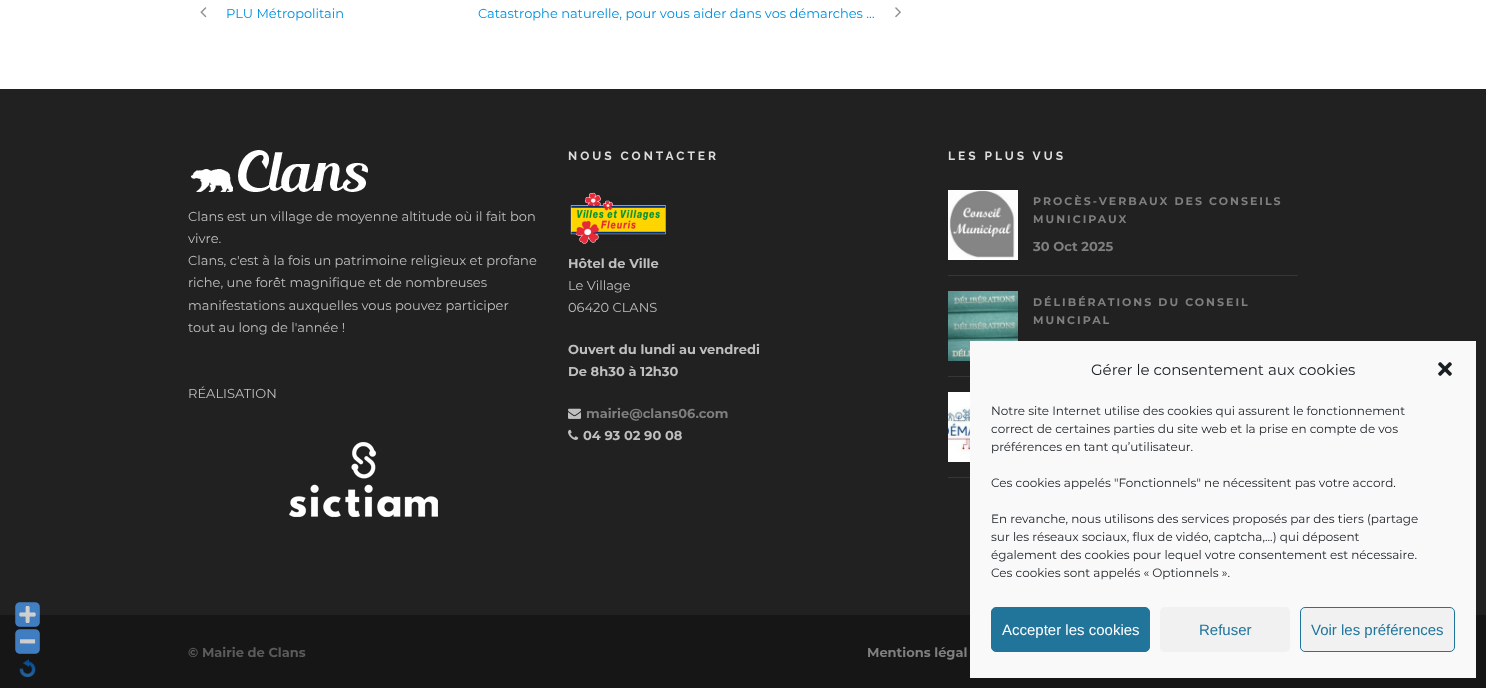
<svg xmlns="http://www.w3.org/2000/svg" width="1486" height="688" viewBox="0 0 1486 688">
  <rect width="100%" height="100%" fill="rgb(255,255,255)"/>
  <image x="200" y="7" width="7" height="11" href="pic1.png"/>
  <g font-family="Montserrat" font-size="13" fill="rgb(0,144,220)">
    <text x="226" y="18">PLU Métropolitain</text>
    <text x="478" y="18">Catastrophe naturelle, pour vous aider dans vos démarches …</text>
  </g>
  <image x="895" y="7" width="6" height="11" href="pic2.png"/>
  <rect x="0" y="89" width="1486" height="526" fill="rgb(33,33,33)"/>
  <image x="191" y="150" width="177" height="42" href="pic3.png"/>
  <g font-family="Montserrat" font-size="13" fill="rgb(191,191,191)">
    <text>
      <tspan x="188" y="221">Clans est un village de moyenne altitude où il fait bon</tspan>
      <tspan x="188" y="243">vivre.</tspan>
      <tspan x="188" y="265">Clans, c'est à la fois un patrimoine religieux et profane</tspan>
      <tspan x="188" y="287">riche, une forêt magnifique et de nombreuses</tspan>
      <tspan x="188" y="310">manifestations auxquelles vous pouvez participer</tspan>
      <tspan x="188" y="332">tout au long de l'année !</tspan>
    </text>
    <text x="188" y="398">RÉALISATION</text>
  </g>
  <image x="289" y="442" width="149" height="75" href="pic4.png"/>
  <text x="568" y="160" font-family="Raleway" font-size="12" font-weight="bold" letter-spacing="3" fill="rgb(221,221,221)">NOUS CONTACTER</text>
  <image x="570" y="192" width="96" height="52" href="pic5.png"/>
  <text x="568" y="268" font-family="Montserrat" font-size="13" font-weight="bold" fill="rgb(191,191,191)">Hôtel de Ville</text>
  <g font-family="Montserrat" font-size="13" fill="rgb(191,191,191)">
    <text>
      <tspan x="568" y="290">Le Village</tspan>
      <tspan x="568" y="312">06420 CLANS</tspan>
    </text>
  </g>
  <g font-family="Montserrat" font-size="13" font-weight="bold" fill="rgb(191,191,191)">
    <text>
      <tspan x="568" y="354">Ouvert du lundi au vendredi</tspan>
      <tspan x="568" y="376">De 8h30 à 12h30</tspan>
    </text>
  </g>
  <image x="568" y="408" width="13" height="11" href="pic6.png"/>
  <text x="586" y="418" font-family="Montserrat" font-size="13" font-weight="bold" fill="rgb(127,127,127)">mairie@clans06.com</text>
  <image x="568" y="429" width="11" height="11" href="pic7.png"/>
  <text x="583" y="440" font-family="Montserrat" font-size="13" font-weight="bold" fill="rgb(191,191,191)">04 93 02 90 08</text>
  <text x="948" y="160" font-family="Raleway" font-size="12" font-weight="bold" letter-spacing="3" fill="rgb(221,221,221)">LES PLUS VUS</text>
  <rect x="948" y="275" width="350" height="1" fill="rgb(54,54,54)"/>
  <image x="948" y="190" width="70" height="70" href="pic8.png"/>
  <g font-family="Montserrat" font-size="11" font-weight="bold" letter-spacing="2" fill="rgb(127,127,127)">
    <text>
      <tspan x="1033" y="205">PROCÈS-VERBAUX DES CONSEILS</tspan>
      <tspan x="1033" y="223">MUNICIPAUX</tspan>
    </text>
  </g>
  <text x="1033" y="251" font-family="Montserrat" font-size="13" font-weight="bold" fill="rgb(127,127,127)">30 Oct 2025</text>
  <rect x="948" y="376" width="22" height="1" fill="rgb(54,54,54)"/>
  <image x="948" y="291" width="70" height="70" href="pic9.png"/>
  <g font-family="Montserrat" font-size="11" font-weight="bold" letter-spacing="2" fill="rgb(127,127,127)">
    <text>
      <tspan x="1033" y="306">DÉLIBÉRATIONS DU CONSEIL</tspan>
      <tspan x="1033" y="324">MUNCIPAL</tspan>
    </text>
  </g>
  <rect x="948" y="477" width="22" height="1" fill="rgb(54,54,54)"/>
  <image x="948" y="392" width="22" height="70" href="pic10.png"/>
  <rect x="0" y="615" width="1486" height="73" fill="rgb(22,22,22)"/>
  <text x="188" y="657" font-family="Montserrat" font-size="13" font-weight="bold" fill="rgb(91,91,91)">© Mairie de Clans</text>
  <text x="867" y="657" font-family="Montserrat" font-size="13" font-weight="bold" fill="rgb(127,127,127)">Mentions légal</text>
  <image x="15" y="602" width="25" height="25" href="pic11.png"/>
  <image x="15" y="629" width="25" height="25" href="pic12.png"/>
  <image x="19" y="659" width="17" height="18" href="pic13.png"/>
  <rect x="970" y="341" width="506" height="337" fill="rgb(249,249,249)"/>
  <text x="1091" y="375" font-family="Montserrat" font-size="15" fill="rgb(25,30,35)">Gérer le consentement aux cookies</text>
  <image x="1438" y="362" width="14" height="14" href="pic14.png"/>
  <g font-family="Montserrat" font-size="12" fill="rgb(25,30,35)">
    <text>
      <tspan x="991" y="415">Notre site Internet utilise des cookies qui assurent le fonctionnement</tspan>
      <tspan x="991" y="433">correct de certaines parties du site web et la prise en compte de vos</tspan>
      <tspan x="991" y="451">préférences en tant qu’utilisateur.</tspan>
    </text>
    <text x="991" y="487">Ces cookies appelés "Fonctionnels" ne nécessitent pas votre accord.</text>
    <text>
      <tspan x="991" y="523">En revanche, nous utilisons des services proposés par des tiers (partage</tspan>
      <tspan x="991" y="541">sur les réseaux sociaux, flux de vidéo, captcha,...) qui déposent</tspan>
      <tspan x="991" y="559">également des cookies pour lequel votre consentement est nécessaire.</tspan>
      <tspan x="991" y="577">Ces cookies sont appelés « Optionnels ».</tspan>
    </text>
  </g>
  <rect x="991.5" y="607.5" width="158" height="44" rx="4.5" fill="rgb(33,117,155)" stroke="rgb(33,117,155)"/>
  <text x="1002" y="635" font-family="Liberation Sans" font-size="15" fill="rgb(255,255,255)">Accepter les cookies</text>
  <rect x="1160" y="607" width="130" height="45" rx="5" fill="rgb(241,241,241)"/>
  <text x="1199" y="635" font-family="Liberation Sans" font-size="15" fill="rgb(33,117,155)">Refuser</text>
  <rect x="1300.5" y="607.5" width="154" height="44" rx="4.5" fill="rgb(241,241,241)" stroke="rgb(33,117,155)"/>
  <text x="1311" y="635" font-family="Liberation Sans" font-size="15" fill="rgb(33,117,155)">Voir les préférences</text>
</svg>
